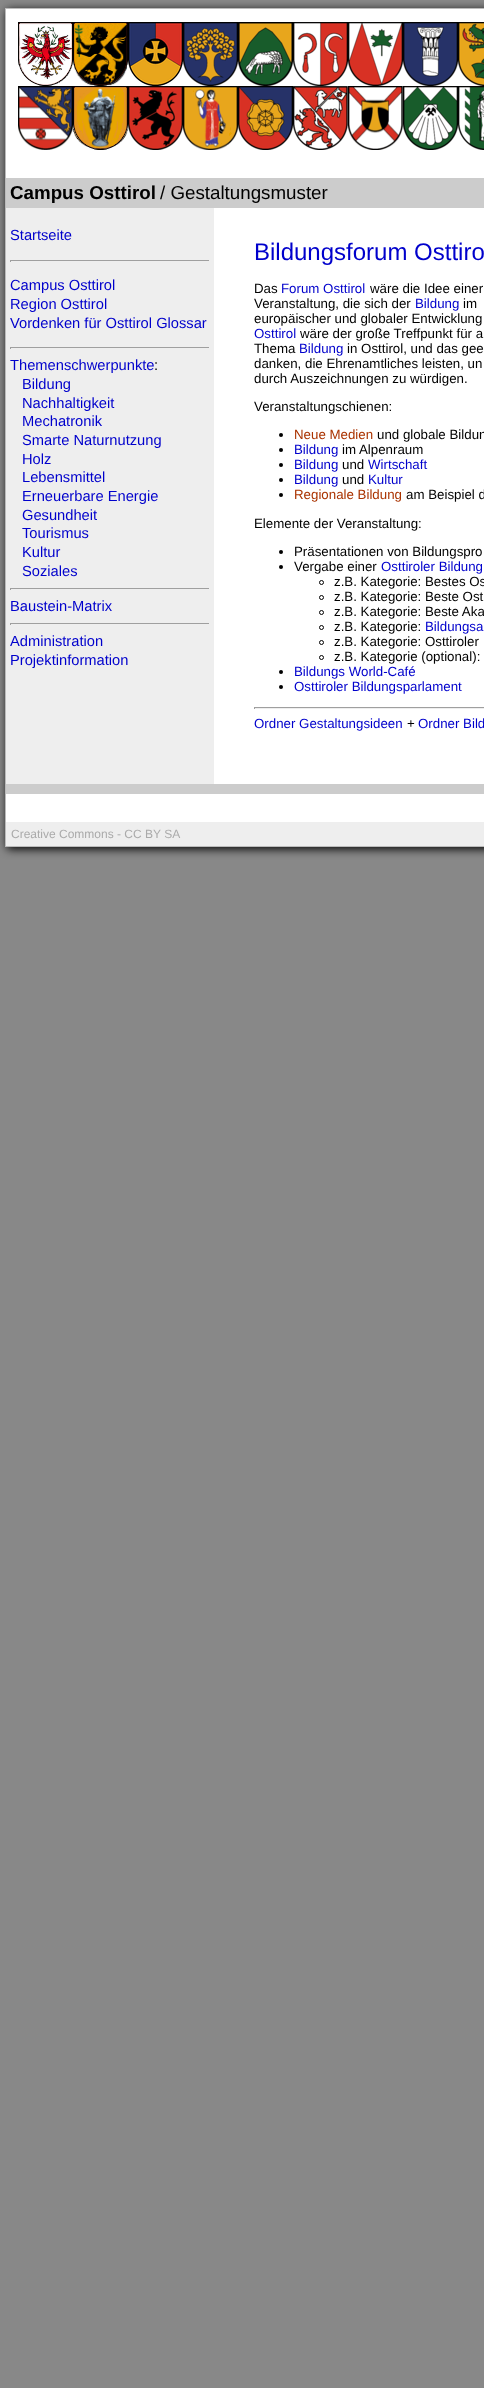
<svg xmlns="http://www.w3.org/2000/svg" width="484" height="2388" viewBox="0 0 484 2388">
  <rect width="100%" height="100%" fill="rgb(136,136,136)"/>
  <rect x="7" y="10" width="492" height="839" fill="rgb(0,0,0)" filter="blur(5px)"/>
  <rect x="5.5" y="8.5" width="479" height="838" fill="none" stroke="rgb(187,187,187)"/>
  <rect x="6" y="9" width="478" height="169" fill="rgb(255,255,255)"/>
  <image x="18" y="22" width="466" height="128" href="pic1.png"/>
  <rect x="6" y="178" width="478" height="30" fill="rgb(204,204,204)"/>
  <text x="10" y="199" font-family="Liberation Sans" font-size="18.75" font-weight="bold" fill="rgb(0,0,0)">Campus Osttirol</text>
  <text x="160" y="199" font-family="Liberation Sans" font-size="18.75" fill="rgb(0,0,0)">/ Gestaltungsmuster</text>
  <rect x="6" y="208" width="208" height="576" fill="rgb(238,238,238)"/>
  <text x="10" y="240" font-family="Liberation Sans" font-size="14.7" fill="rgb(0,0,204)">Startseite</text>
  <rect x="10" y="260" width="200" height="1" fill="rgb(159,159,159)"/>
  <rect x="209" y="260" width="1" height="2" fill="rgb(238,238,238)"/>
  <rect x="10" y="260" width="1" height="2" fill="rgb(159,159,159)"/>
  <g font-family="Liberation Sans" font-size="14.7" fill="rgb(0,0,204)">
    <text>
      <tspan x="10" y="290">Campus Osttirol</tspan>
      <tspan x="10" y="309">Region Osttirol</tspan>
      <tspan x="10" y="328">Vordenken für Osttirol Glossar</tspan>
    </text>
  </g>
  <rect x="10" y="347" width="200" height="1" fill="rgb(159,159,159)"/>
  <rect x="209" y="347" width="1" height="2" fill="rgb(238,238,238)"/>
  <rect x="10" y="347" width="1" height="2" fill="rgb(159,159,159)"/>
  <text x="10" y="370" font-family="Liberation Sans" font-size="14.7" fill="rgb(0,0,204)">Themenschwerpunkte</text>
  <text x="154" y="370" font-family="Liberation Sans" font-size="14.7" fill="rgb(0,0,0)">:</text>
  <g font-family="Liberation Sans" font-size="14.7" fill="rgb(0,0,204)">
    <text>
      <tspan x="22" y="389">Bildung</tspan>
      <tspan x="22" y="408">Nachhaltigkeit</tspan>
      <tspan x="22" y="426">Mechatronik</tspan>
      <tspan x="22" y="445">Smarte Naturnutzung</tspan>
      <tspan x="22" y="464">Holz</tspan>
      <tspan x="22" y="482">Lebensmittel</tspan>
      <tspan x="22" y="501">Erneuerbare Energie</tspan>
      <tspan x="22" y="520">Gesundheit</tspan>
      <tspan x="22" y="538">Tourismus</tspan>
      <tspan x="22" y="557">Kultur</tspan>
      <tspan x="22" y="576">Soziales</tspan>
    </text>
  </g>
  <rect x="10" y="588" width="200" height="1" fill="rgb(159,159,159)"/>
  <rect x="209" y="588" width="1" height="2" fill="rgb(238,238,238)"/>
  <rect x="10" y="588" width="1" height="2" fill="rgb(159,159,159)"/>
  <text x="10" y="611" font-family="Liberation Sans" font-size="14.7" fill="rgb(0,0,204)">Baustein-Matrix</text>
  <rect x="10" y="623" width="200" height="1" fill="rgb(159,159,159)"/>
  <rect x="209" y="623" width="1" height="2" fill="rgb(238,238,238)"/>
  <rect x="10" y="623" width="1" height="2" fill="rgb(159,159,159)"/>
  <g font-family="Liberation Sans" font-size="14.7" fill="rgb(0,0,204)">
    <text>
      <tspan x="10" y="646">Administration</tspan>
      <tspan x="10" y="665">Projektinformation</tspan>
    </text>
  </g>
  <rect x="214" y="208" width="270" height="576" fill="rgb(255,255,255)"/>
  <text x="254" y="260" font-family="Liberation Sans" font-size="24" fill="rgb(0,0,204)">Bildungsforum Osttiro</text>
  <text x="254" y="293" font-family="Liberation Sans" font-size="13.3" fill="rgb(0,0,0)">Das</text>
  <text x="281" y="293" font-family="Liberation Sans" font-size="13.3" fill="rgb(0,0,204)">Forum Osttirol</text>
  <g font-family="Liberation Sans" font-size="13.3" fill="rgb(0,0,0)">
    <text x="370" y="293">wäre die Idee einer</text>
    <text x="254" y="308">Veranstaltung, die sich der</text>
  </g>
  <text x="415" y="308" font-family="Liberation Sans" font-size="13.3" fill="rgb(0,0,204)">Bildung</text>
  <g font-family="Liberation Sans" font-size="13.3" fill="rgb(0,0,0)">
    <text x="463" y="308">im</text>
    <text x="254" y="323">europäischer und globaler Entwicklung</text>
  </g>
  <text x="254" y="338" font-family="Liberation Sans" font-size="13.3" fill="rgb(0,0,204)">Osttirol</text>
  <g font-family="Liberation Sans" font-size="13.3" fill="rgb(0,0,0)">
    <text x="300" y="338">wäre der große Treffpunkt für a</text>
    <text x="254" y="353">Thema</text>
  </g>
  <text x="299" y="353" font-family="Liberation Sans" font-size="13.3" fill="rgb(0,0,204)">Bildung</text>
  <g font-family="Liberation Sans" font-size="13.3" fill="rgb(0,0,0)">
    <text x="347" y="353">in Osttirol, und das gee</text>
    <text>
      <tspan x="254" y="368">danken, die Ehrenamtliches leisten, un</tspan>
      <tspan x="254" y="383">durch Auszeichnungen zu würdigen.</tspan>
    </text>
    <text x="254" y="411">Veranstaltungschienen:</text>
  </g>
  <circle cx="281" cy="435" r="2" fill="rgb(0,0,0)"/>
  <text x="294" y="439" font-family="Liberation Sans" font-size="13.3" fill="rgb(170,51,0)">Neue Medien</text>
  <text x="377" y="439" font-family="Liberation Sans" font-size="13.3" fill="rgb(0,0,0)">und globale Bildun</text>
  <circle cx="281" cy="450" r="2" fill="rgb(0,0,0)"/>
  <text x="294" y="454" font-family="Liberation Sans" font-size="13.3" fill="rgb(0,0,204)">Bildung</text>
  <text x="342" y="454" font-family="Liberation Sans" font-size="13.3" fill="rgb(0,0,0)">im Alpenraum</text>
  <circle cx="281" cy="465" r="2" fill="rgb(0,0,0)"/>
  <text x="294" y="469" font-family="Liberation Sans" font-size="13.3" fill="rgb(0,0,204)">Bildung</text>
  <text x="342" y="469" font-family="Liberation Sans" font-size="13.3" fill="rgb(0,0,0)">und</text>
  <text x="368" y="469" font-family="Liberation Sans" font-size="13.3" fill="rgb(0,0,204)">Wirtschaft</text>
  <circle cx="281" cy="480" r="2" fill="rgb(0,0,0)"/>
  <text x="294" y="484" font-family="Liberation Sans" font-size="13.3" fill="rgb(0,0,204)">Bildung</text>
  <text x="342" y="484" font-family="Liberation Sans" font-size="13.3" fill="rgb(0,0,0)">und</text>
  <text x="368" y="484" font-family="Liberation Sans" font-size="13.3" fill="rgb(0,0,204)">Kultur</text>
  <circle cx="281" cy="495" r="2" fill="rgb(0,0,0)"/>
  <text x="294" y="499" font-family="Liberation Sans" font-size="13.3" fill="rgb(170,51,0)">Regionale Bildung</text>
  <g font-family="Liberation Sans" font-size="13.3" fill="rgb(0,0,0)">
    <text x="406" y="499">am Beispiel d</text>
    <text x="254" y="528">Elemente der Veranstaltung:</text>
  </g>
  <circle cx="281" cy="552" r="2" fill="rgb(0,0,0)"/>
  <text x="294" y="556" font-family="Liberation Sans" font-size="13.3" fill="rgb(0,0,0)">Präsentationen von Bildungspro</text>
  <circle cx="281" cy="567" r="2" fill="rgb(0,0,0)"/>
  <text x="294" y="571" font-family="Liberation Sans" font-size="13.3" fill="rgb(0,0,0)">Vergabe einer</text>
  <text x="381" y="571" font-family="Liberation Sans" font-size="13.3" fill="rgb(0,0,204)">Osttiroler Bildung</text>
  <circle cx="321.5" cy="582.5" r="2" fill="none" stroke="rgb(0,0,0)"/>
  <text x="334" y="586" font-family="Liberation Sans" font-size="13.3" fill="rgb(0,0,0)">z.B. Kategorie: Bestes Os</text>
  <circle cx="321.5" cy="597.5" r="2" fill="none" stroke="rgb(0,0,0)"/>
  <text x="334" y="601" font-family="Liberation Sans" font-size="13.3" fill="rgb(0,0,0)">z.B. Kategorie: Beste Ost</text>
  <circle cx="321.5" cy="612.5" r="2" fill="none" stroke="rgb(0,0,0)"/>
  <text x="334" y="616" font-family="Liberation Sans" font-size="13.3" fill="rgb(0,0,0)">z.B. Kategorie: Beste Aka</text>
  <circle cx="321.5" cy="627.5" r="2" fill="none" stroke="rgb(0,0,0)"/>
  <text x="334" y="631" font-family="Liberation Sans" font-size="13.3" fill="rgb(0,0,0)">z.B. Kategorie:</text>
  <text x="425" y="631" font-family="Liberation Sans" font-size="13.3" fill="rgb(0,0,204)">Bildungsa</text>
  <circle cx="321.5" cy="642.5" r="2" fill="none" stroke="rgb(0,0,0)"/>
  <text x="334" y="646" font-family="Liberation Sans" font-size="13.3" fill="rgb(0,0,0)">z.B. Kategorie: Osttiroler</text>
  <circle cx="321.5" cy="657.5" r="2" fill="none" stroke="rgb(0,0,0)"/>
  <text x="334" y="661" font-family="Liberation Sans" font-size="13.3" fill="rgb(0,0,0)">z.B. Kategorie (optional):</text>
  <circle cx="281" cy="672" r="2" fill="rgb(0,0,0)"/>
  <text x="294" y="676" font-family="Liberation Sans" font-size="13.3" fill="rgb(0,0,204)">Bildungs World-Café</text>
  <circle cx="281" cy="687" r="2" fill="rgb(0,0,0)"/>
  <text x="294" y="691" font-family="Liberation Sans" font-size="13.3" fill="rgb(0,0,204)">Osttiroler Bildungsparlament</text>
  <rect x="254" y="707" width="230" height="1" fill="rgb(159,159,159)"/>
  <rect x="254" y="708" width="230" height="1" fill="rgb(238,238,238)"/>
  <rect x="254" y="707" width="1" height="2" fill="rgb(159,159,159)"/>
  <text x="254" y="728" font-family="Liberation Sans" font-size="13.3" fill="rgb(0,0,204)">Ordner Gestaltungsideen</text>
  <text x="407" y="728" font-family="Liberation Sans" font-size="13.3" fill="rgb(0,0,0)">+</text>
  <text x="418" y="728" font-family="Liberation Sans" font-size="13.3" fill="rgb(0,0,204)">Ordner Bild</text>
  <rect x="6" y="784" width="478" height="10" fill="rgb(204,204,204)"/>
  <rect x="6" y="794" width="478" height="28" fill="rgb(255,255,255)"/>
  <rect x="6" y="822" width="478" height="24" fill="rgb(238,238,238)"/>
  <text x="11" y="838" font-family="Liberation Sans" font-size="12" fill="rgb(170,170,170)">Creative Commons - CC BY SA</text>
</svg>
